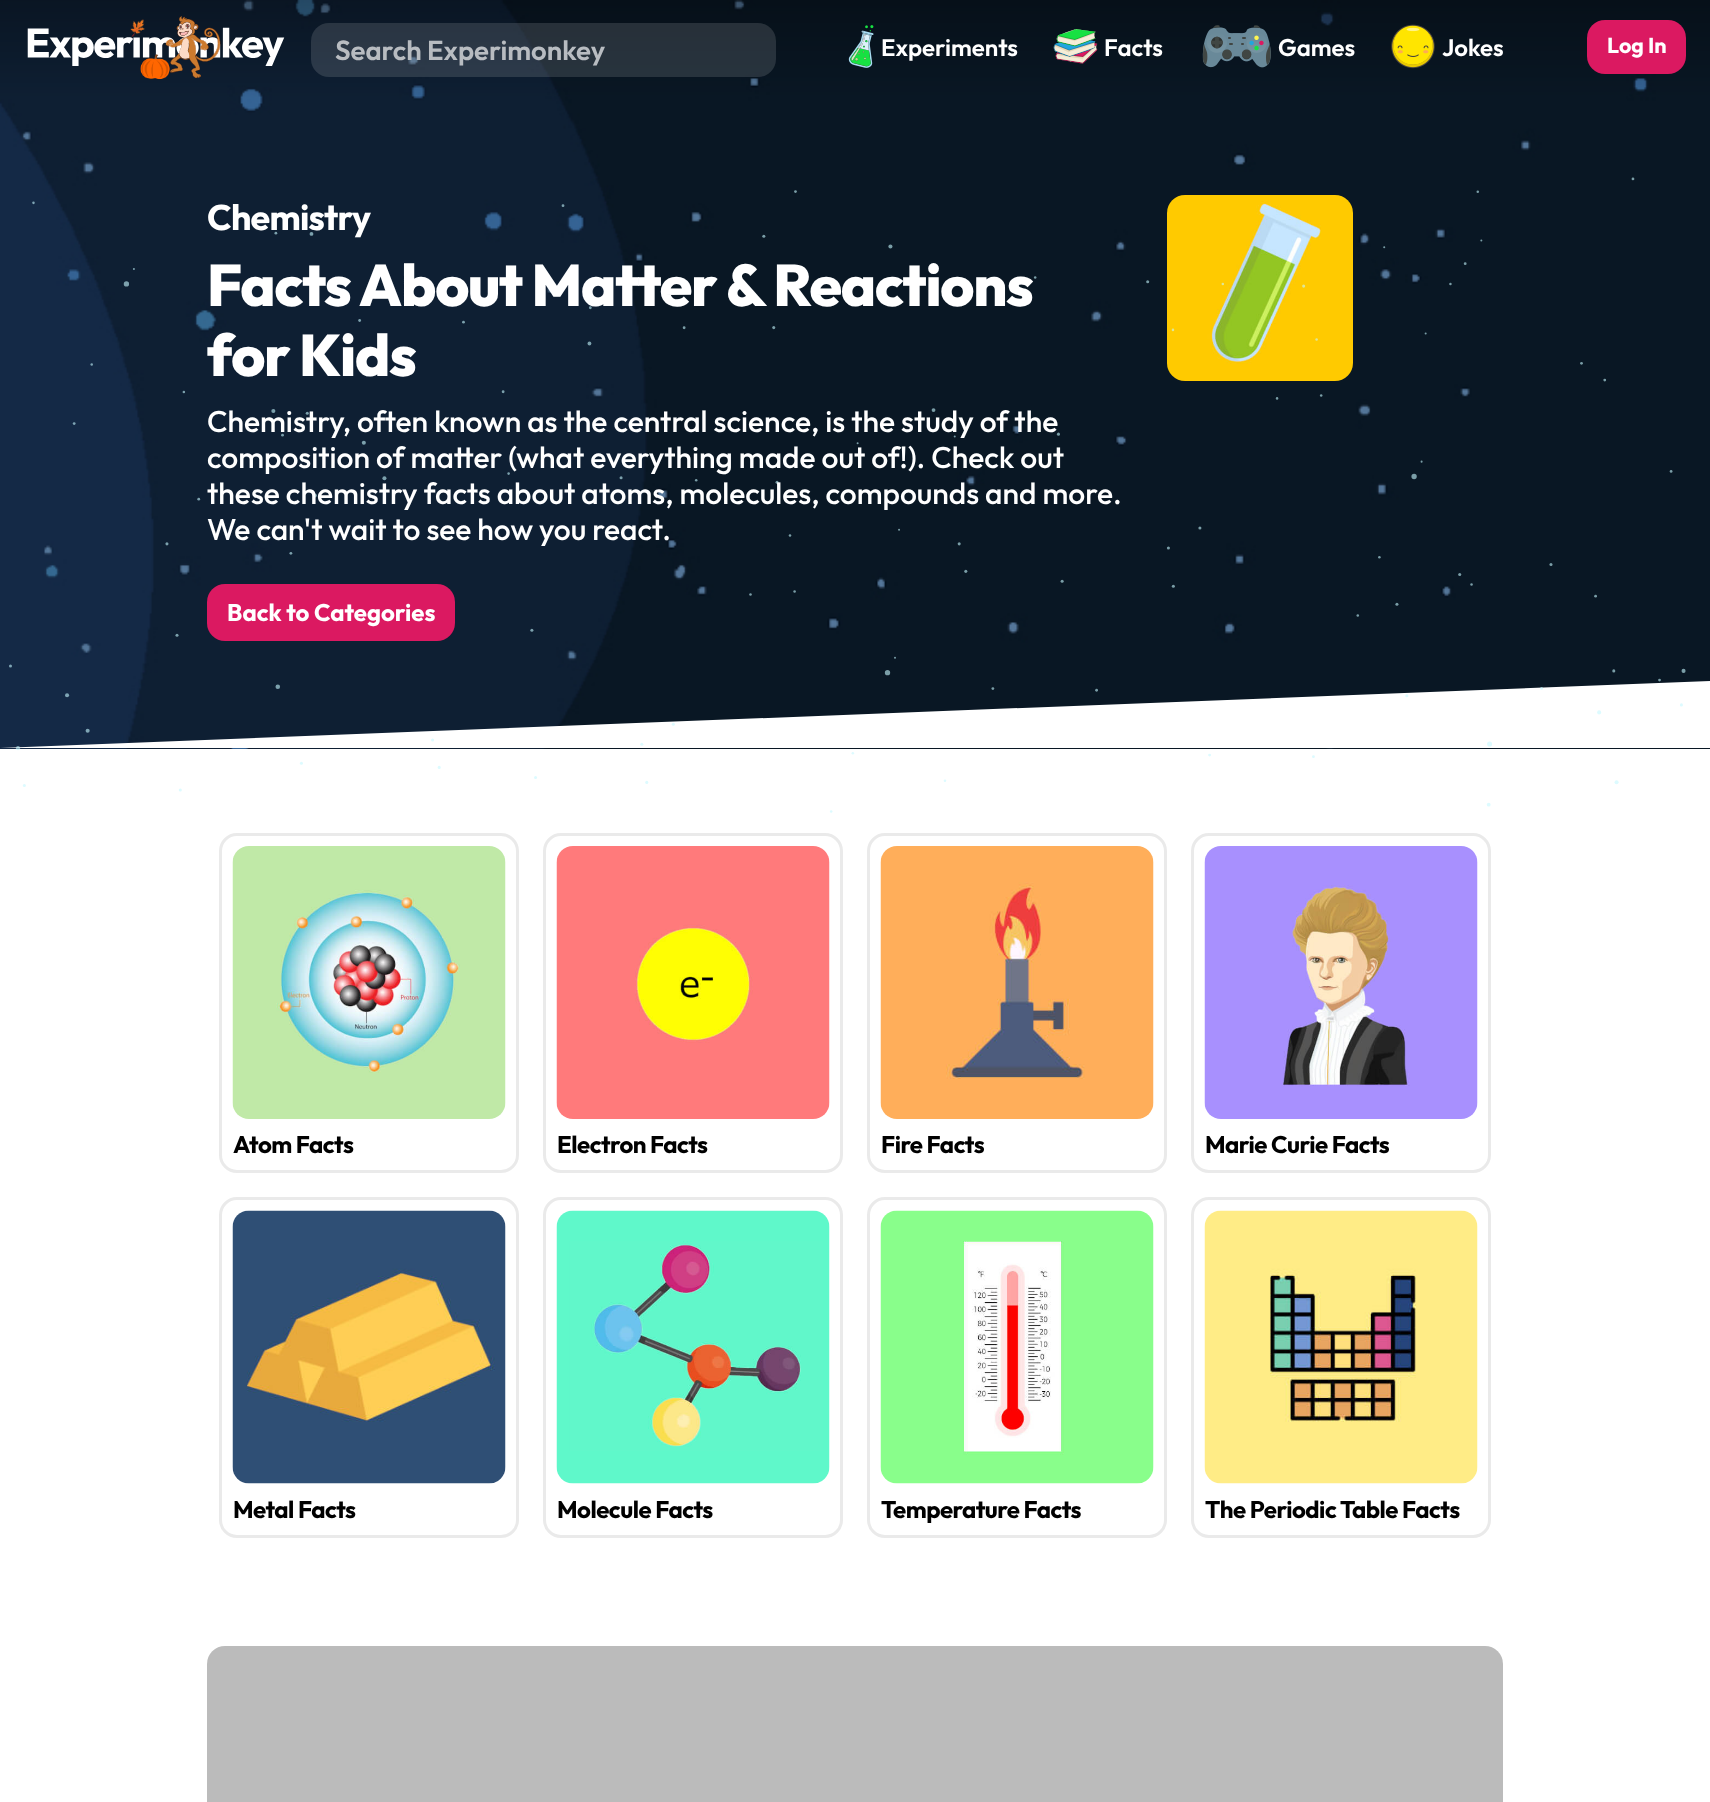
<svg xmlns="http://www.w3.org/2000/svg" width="1710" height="1802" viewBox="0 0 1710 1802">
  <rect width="100%" height="100%" fill="rgb(255,255,255)"/>
  <image x="0" y="0" width="1710" height="749" href="pic1.png"/>
  <image x="27" y="16" width="258" height="64" href="pic2.png"/>
  <rect x="311" y="23" width="465" height="54" rx="18" fill="rgba(255,255,255,0.13)"/>
  <text x="335" y="60" font-family="Outfit" font-size="27.5" font-weight="600" fill="rgb(184,188,193)">Search Experimonkey</text>
  <image x="848" y="25" width="26" height="43" href="pic3.png"/>
  <text x="881" y="56" font-family="Outfit" font-size="24" font-weight="600" fill="rgb(255,255,255)">Experiments</text>
  <image x="1053" y="29" width="45" height="35" href="pic4.png"/>
  <text x="1104" y="56" font-family="Outfit" font-size="24" font-weight="600" fill="rgb(255,255,255)">Facts</text>
  <image x="1202" y="25" width="69" height="43" href="pic5.png"/>
  <text x="1278" y="56" font-family="Outfit" font-size="24" font-weight="600" fill="rgb(255,255,255)">Games</text>
  <image x="1391" y="24" width="44" height="45" href="pic6.png"/>
  <text x="1442" y="56" font-family="Outfit" font-size="24" font-weight="600" fill="rgb(255,255,255)">Jokes</text>
  <rect x="1587" y="20" width="99" height="54" rx="18" fill="rgb(219,25,97)"/>
  <text x="1607" y="53" font-family="Outfit" font-size="21.5" font-weight="bold" fill="rgb(255,255,255)">Log In</text>
  <image x="1167" y="195" width="186" height="186" href="pic8.png"/>
  <path d="M1710 748H0L1710 681Z" fill="rgb(255,255,255)"/>
  <image x="9" y="177" width="1677" height="636" href="pic7.png"/>
  <text x="207" y="230" font-family="Outfit" font-size="35.75" font-weight="bold" letter-spacing="-0.75" fill="rgb(255,255,255)">Chemistry</text>
  <g font-family="Outfit" font-size="58.6" font-weight="800" letter-spacing="-1.2" fill="rgb(255,255,255)">
    <text>
      <tspan x="207" y="306">Facts About Matter &amp; Reactions</tspan>
      <tspan x="207" y="376">for Kids</tspan>
    </text>
  </g>
  <g font-family="Outfit" font-size="30" font-weight="500" fill="rgb(255,255,255)">
    <text>
      <tspan x="207" y="432">Chemistry, often known as the central science, is the study of the</tspan>
      <tspan x="207" y="468">composition of matter (what everything made out of!). Check out</tspan>
      <tspan x="207" y="504">these chemistry facts about atoms, molecules, compounds and more.</tspan>
      <tspan x="207" y="540">We can't wait to see how you react.</tspan>
    </text>
  </g>
  <rect x="207" y="584" width="248" height="57" rx="18" fill="rgb(219,25,97)"/>
  <text x="227" y="621" font-family="Outfit" font-size="24" font-weight="bold" fill="rgb(255,255,255)">Back to Categories</text>
  <rect x="220.5" y="834.5" width="297" height="337" rx="16.5" fill="none" stroke="rgb(234,234,234)" stroke-width="3"/>
  <image x="232" y="846" width="274" height="273" href="pic9.png"/>
  <text x="233" y="1153" font-family="Outfit" font-size="24" font-weight="bold" letter-spacing="-0.5" fill="rgb(0,0,0)">Atom Facts</text>
  <rect x="544.5" y="834.5" width="297" height="337" rx="16.5" fill="none" stroke="rgb(234,234,234)" stroke-width="3"/>
  <image x="556" y="846" width="274" height="273" href="pic10.png"/>
  <text x="557" y="1153" font-family="Outfit" font-size="24" font-weight="bold" letter-spacing="-0.5" fill="rgb(0,0,0)">Electron Facts</text>
  <rect x="868.5" y="834.5" width="297" height="337" rx="16.5" fill="none" stroke="rgb(234,234,234)" stroke-width="3"/>
  <image x="880" y="846" width="274" height="273" href="pic11.png"/>
  <text x="881" y="1153" font-family="Outfit" font-size="24" font-weight="bold" letter-spacing="-0.5" fill="rgb(0,0,0)">Fire Facts</text>
  <rect x="1192.5" y="834.5" width="297" height="337" rx="16.5" fill="none" stroke="rgb(234,234,234)" stroke-width="3"/>
  <image x="1204" y="846" width="274" height="273" href="pic12.png"/>
  <text x="1205" y="1153" font-family="Outfit" font-size="24" font-weight="bold" letter-spacing="-0.5" fill="rgb(0,0,0)">Marie Curie Facts</text>
  <rect x="220.5" y="1198.5" width="297" height="338" rx="16.5" fill="none" stroke="rgb(234,234,234)" stroke-width="3"/>
  <image x="232" y="1210" width="274" height="274" href="pic13.png"/>
  <text x="233" y="1518" font-family="Outfit" font-size="24" font-weight="bold" letter-spacing="-0.5" fill="rgb(0,0,0)">Metal Facts</text>
  <rect x="544.5" y="1198.5" width="297" height="338" rx="16.5" fill="none" stroke="rgb(234,234,234)" stroke-width="3"/>
  <image x="556" y="1210" width="274" height="274" href="pic14.png"/>
  <text x="557" y="1518" font-family="Outfit" font-size="24" font-weight="bold" letter-spacing="-0.5" fill="rgb(0,0,0)">Molecule Facts</text>
  <rect x="868.5" y="1198.5" width="297" height="338" rx="16.5" fill="none" stroke="rgb(234,234,234)" stroke-width="3"/>
  <image x="880" y="1210" width="274" height="274" href="pic15.png"/>
  <text x="881" y="1518" font-family="Outfit" font-size="24" font-weight="bold" letter-spacing="-0.5" fill="rgb(0,0,0)">Temperature Facts</text>
  <rect x="1192.5" y="1198.5" width="297" height="338" rx="16.5" fill="none" stroke="rgb(234,234,234)" stroke-width="3"/>
  <image x="1204" y="1210" width="274" height="274" href="pic16.png"/>
  <text x="1205" y="1518" font-family="Outfit" font-size="24" font-weight="bold" letter-spacing="-0.5" fill="rgb(0,0,0)">The Periodic Table Facts</text>
  <rect x="207" y="1646" width="1296" height="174" rx="18" fill="rgb(187,187,187)"/>
</svg>
